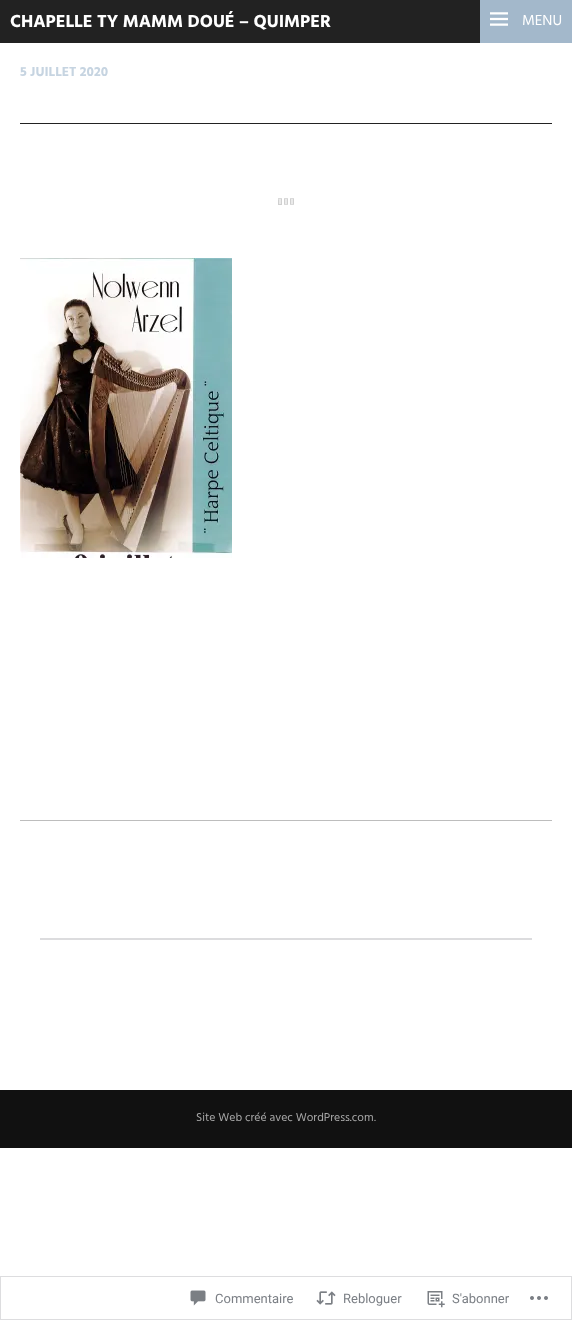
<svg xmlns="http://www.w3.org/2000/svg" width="572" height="1320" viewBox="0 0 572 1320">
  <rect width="100%" height="100%" fill="rgb(255,255,255)"/>
  <image x="278" y="198" width="16" height="7" href="pic1.png"/>
  <rect x="0" y="0" width="480" height="43" fill="rgb(34,34,34)"/>
  <text x="10" y="27" font-family="Hind" font-size="17.9" font-weight="bold" fill="rgb(255,255,255)">CHAPELLE TY MAMM DOUÉ – QUIMPER</text>
  <rect x="480" y="0" width="92" height="43" fill="rgb(163,184,203)"/>
  <image x="490" y="12" width="18" height="14" href="pic2.png"/>
  <text x="522" y="25" font-family="Hind" font-size="15" fill="rgb(255,255,255)">MENU</text>
  <rect x="20" y="123" width="532" height="1" fill="rgb(34,34,34)"/>
  <text x="20" y="76" font-family="Hind" font-size="13.5" font-weight="bold" fill="rgb(198,212,225)">5 JUILLET 2020</text>
  <image x="20" y="258" width="212" height="300" href="pic3.png"/>
  <rect x="20" y="820" width="532" height="1" fill="rgb(189,189,189)"/>
  <rect x="40" y="938" width="492" height="2" fill="rgb(220,220,222)"/>
  <rect x="0" y="1090" width="572" height="58" fill="rgb(17,17,17)"/>
  <text x="196" y="1121" font-family="Hind" font-size="11.75" fill="rgb(170,170,170)">Site Web créé avec WordPress.com</text>
  <text x="374" y="1121" font-family="Hind" font-size="11.75" fill="rgb(153,153,153)">.</text>
  <rect x="0.5" y="1276.5" width="571" height="43" fill="none" stroke="rgb(221,221,223)"/>
  <image x="190" y="1290" width="16" height="16" href="pic4.png"/>
  <text x="215" y="1303" font-family="Roboto" font-size="13" fill="rgb(123,127,133)">Commentaire</text>
  <image x="316" y="1291" width="20" height="14" href="pic5.png"/>
  <text x="343" y="1303" font-family="Roboto" font-size="13" fill="rgb(123,127,133)">Rebloguer</text>
  <image x="427" y="1291" width="18" height="17" href="pic6.png"/>
  <text x="452" y="1303" font-family="Roboto" font-size="13" fill="rgb(123,127,133)">S'abonner</text>
  <image x="530" y="1296" width="18" height="4" href="pic7.png"/>
</svg>
